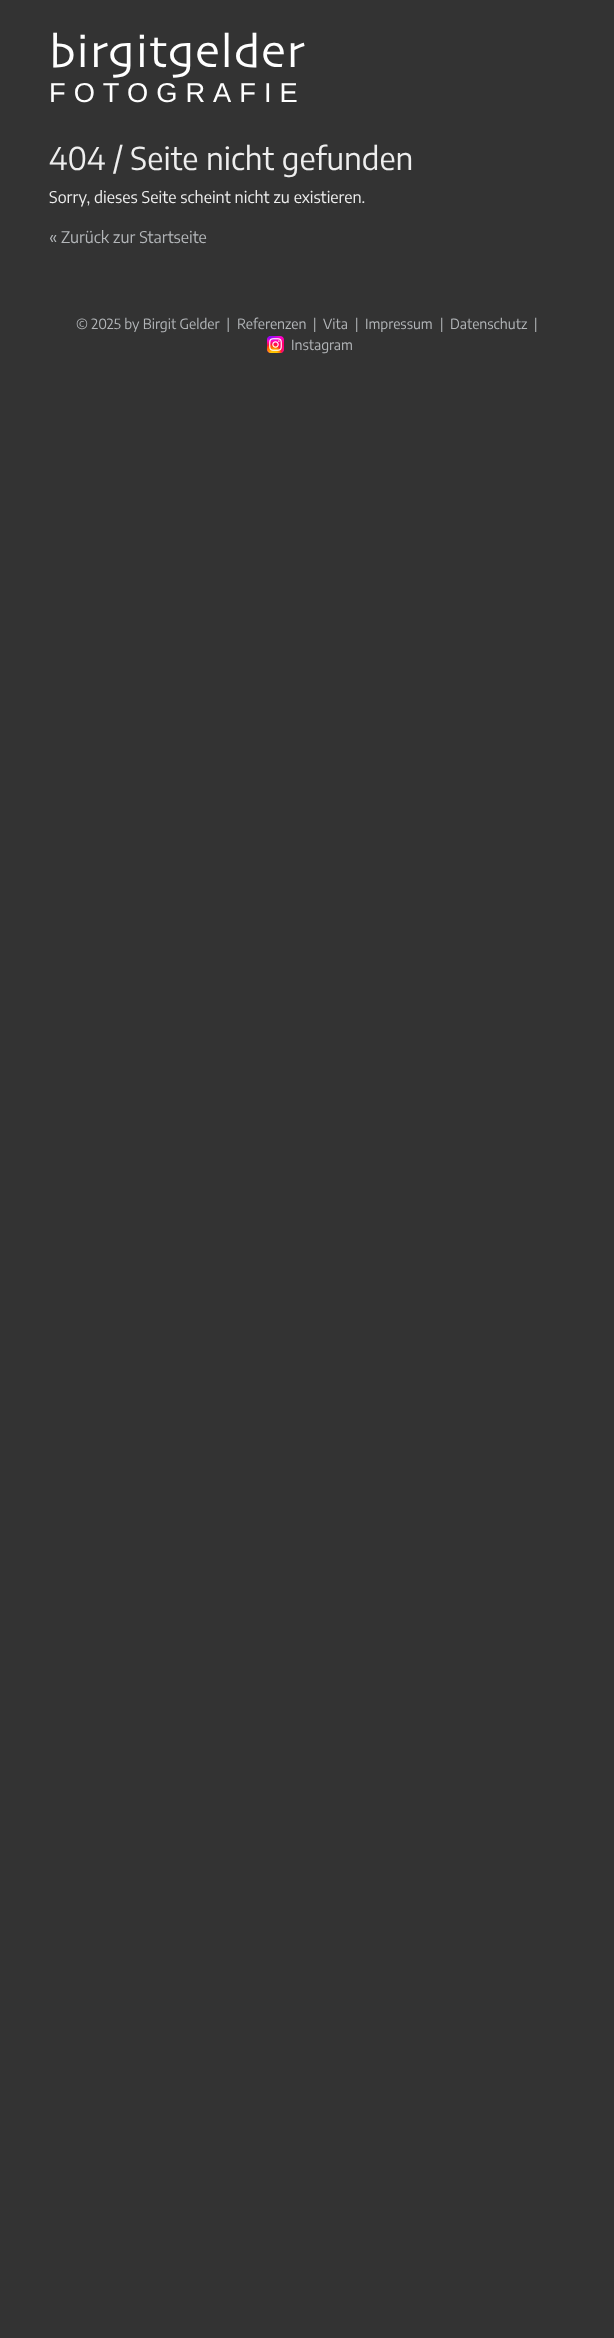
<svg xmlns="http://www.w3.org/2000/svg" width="614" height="2338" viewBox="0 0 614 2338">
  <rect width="100%" height="100%" fill="rgb(51,51,51)"/>
  <text x="49" y="67" font-family="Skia" font-size="48" letter-spacing="0.75" fill="rgb(255,255,255)">birgitgelder</text>
  <text x="49" y="102" font-family="Liberation Sans" font-size="27.25" letter-spacing="8" fill="rgb(255,255,255)">FOTOGRAFIE</text>
  <text x="49" y="170" font-family="Encode Sans Condensed" font-size="31.25" font-weight="100" fill="rgb(238,238,238)">404 / Seite nicht gefunden</text>
  <text x="49" y="203" font-family="Encode Sans Condensed" font-size="16" font-weight="100" fill="rgb(238,238,238)">Sorry, dieses Seite scheint nicht zu existieren.</text>
  <text x="49" y="243" font-family="Encode Sans Condensed" font-size="16" font-weight="100" fill="rgb(179,182,185)">« Zurück zur Startseite</text>
  <g font-family="Encode Sans Condensed" font-size="14" font-weight="100" fill="rgb(179,182,185)">
    <text x="76" y="329" xml:space="preserve">© 2025 by Birgit Gelder  |</text>
    <text x="237" y="329">Referenzen</text>
    <text x="313" y="329">|</text>
    <text x="323" y="329">Vita</text>
    <text x="355" y="329">|</text>
    <text x="365" y="329">Impressum</text>
    <text x="440" y="329">|</text>
    <text x="450" y="329">Datenschutz</text>
    <text x="534" y="329">|</text>
  </g>
  <image x="267" y="336" width="17" height="17" href="pic1.png"/>
  <text x="291" y="350" font-family="Encode Sans Condensed" font-size="14" font-weight="100" fill="rgb(179,182,185)">Instagram</text>
</svg>
